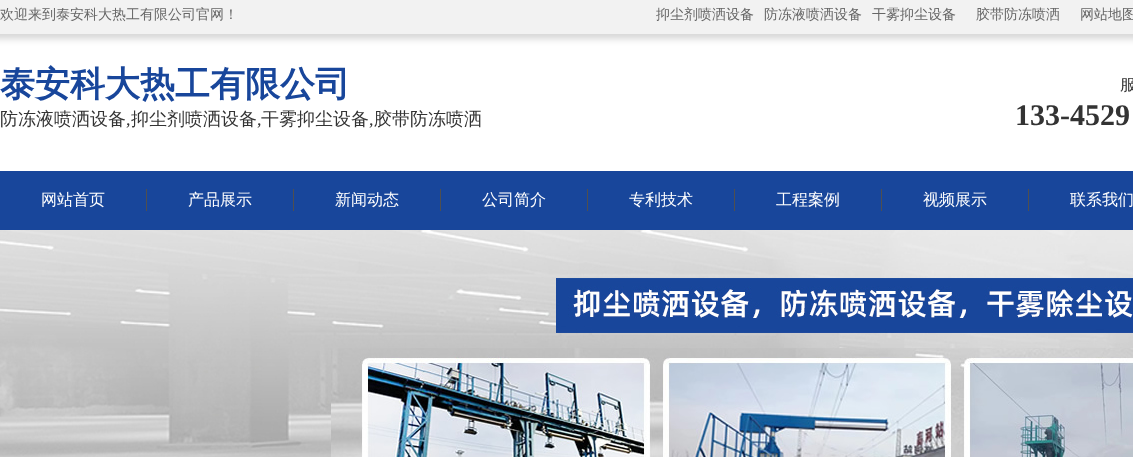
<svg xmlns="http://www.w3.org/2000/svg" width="1133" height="457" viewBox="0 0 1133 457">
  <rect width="100%" height="100%" fill="rgb(255,255,255)"/>
  <image x="0" y="0" width="1133" height="230" href="pic1.png"/>
  <g font-family="WenQuanYi Zen Hei" font-size="14" font-weight="500" fill="rgb(102,102,102)">
    <text x="0" y="19">欢迎来到泰安科大热工有限公司官网！</text>
    <text x="656" y="19">抑尘剂喷洒设备</text>
    <text x="764" y="19">防冻液喷洒设备</text>
    <text x="872" y="19">干雾抑尘设备</text>
    <text x="976" y="19">胶带防冻喷洒</text>
    <text x="1080" y="19">网站地图</text>
  </g>
  <text x="0" y="96" font-family="WenQuanYi Zen Hei" font-size="35" font-weight="bold" fill="rgb(24,70,155)">泰安科大热工有限公司</text>
  <text x="0" y="125" font-family="WenQuanYi Zen Hei" font-size="18" font-weight="500" fill="rgb(51,51,51)">防冻液喷洒设备</text>
  <text x="126" y="125" font-family="Liberation Serif" font-size="18" fill="rgb(51,51,51)">,</text>
  <text x="131" y="125" font-family="WenQuanYi Zen Hei" font-size="18" font-weight="500" fill="rgb(51,51,51)">抑尘剂喷洒设备</text>
  <text x="257" y="125" font-family="Liberation Serif" font-size="18" fill="rgb(51,51,51)">,</text>
  <text x="261" y="125" font-family="WenQuanYi Zen Hei" font-size="18" font-weight="500" fill="rgb(51,51,51)">干雾抑尘设备</text>
  <text x="369" y="125" font-family="Liberation Serif" font-size="18" fill="rgb(51,51,51)">,</text>
  <text x="374" y="125" font-family="WenQuanYi Zen Hei" font-size="18" font-weight="500" fill="rgb(51,51,51)">胶带防冻喷洒</text>
  <text x="1120" y="90" font-family="WenQuanYi Zen Hei" font-size="16" font-weight="500" fill="rgb(51,51,51)">服</text>
  <text x="1015" y="125" font-family="Liberation Serif" font-size="30" font-weight="bold" fill="rgb(51,51,51)">133-4529</text>
  <rect x="146" y="189" width="1" height="22" fill="rgb(79,79,79)"/>
  <text x="41" y="205" font-family="WenQuanYi Zen Hei" font-size="16" font-weight="500" fill="rgb(255,255,255)">网站首页</text>
  <rect x="293" y="189" width="1" height="22" fill="rgb(79,79,79)"/>
  <text x="188" y="205" font-family="WenQuanYi Zen Hei" font-size="16" font-weight="500" fill="rgb(255,255,255)">产品展示</text>
  <rect x="440" y="189" width="1" height="22" fill="rgb(79,79,79)"/>
  <text x="335" y="205" font-family="WenQuanYi Zen Hei" font-size="16" font-weight="500" fill="rgb(255,255,255)">新闻动态</text>
  <rect x="587" y="189" width="1" height="22" fill="rgb(79,79,79)"/>
  <text x="482" y="205" font-family="WenQuanYi Zen Hei" font-size="16" font-weight="500" fill="rgb(255,255,255)">公司简介</text>
  <rect x="734" y="189" width="1" height="22" fill="rgb(79,79,79)"/>
  <text x="629" y="205" font-family="WenQuanYi Zen Hei" font-size="16" font-weight="500" fill="rgb(255,255,255)">专利技术</text>
  <rect x="881" y="189" width="1" height="22" fill="rgb(79,79,79)"/>
  <text x="776" y="205" font-family="WenQuanYi Zen Hei" font-size="16" font-weight="500" fill="rgb(255,255,255)">工程案例</text>
  <rect x="1028" y="189" width="1" height="22" fill="rgb(79,79,79)"/>
  <g font-family="WenQuanYi Zen Hei" font-size="16" font-weight="500" fill="rgb(255,255,255)">
    <text x="923" y="205">视频展示</text>
    <text x="1070" y="205">联系我们</text>
  </g>
  <image x="0" y="230" width="1133" height="227" href="pic2.png"/>
</svg>
